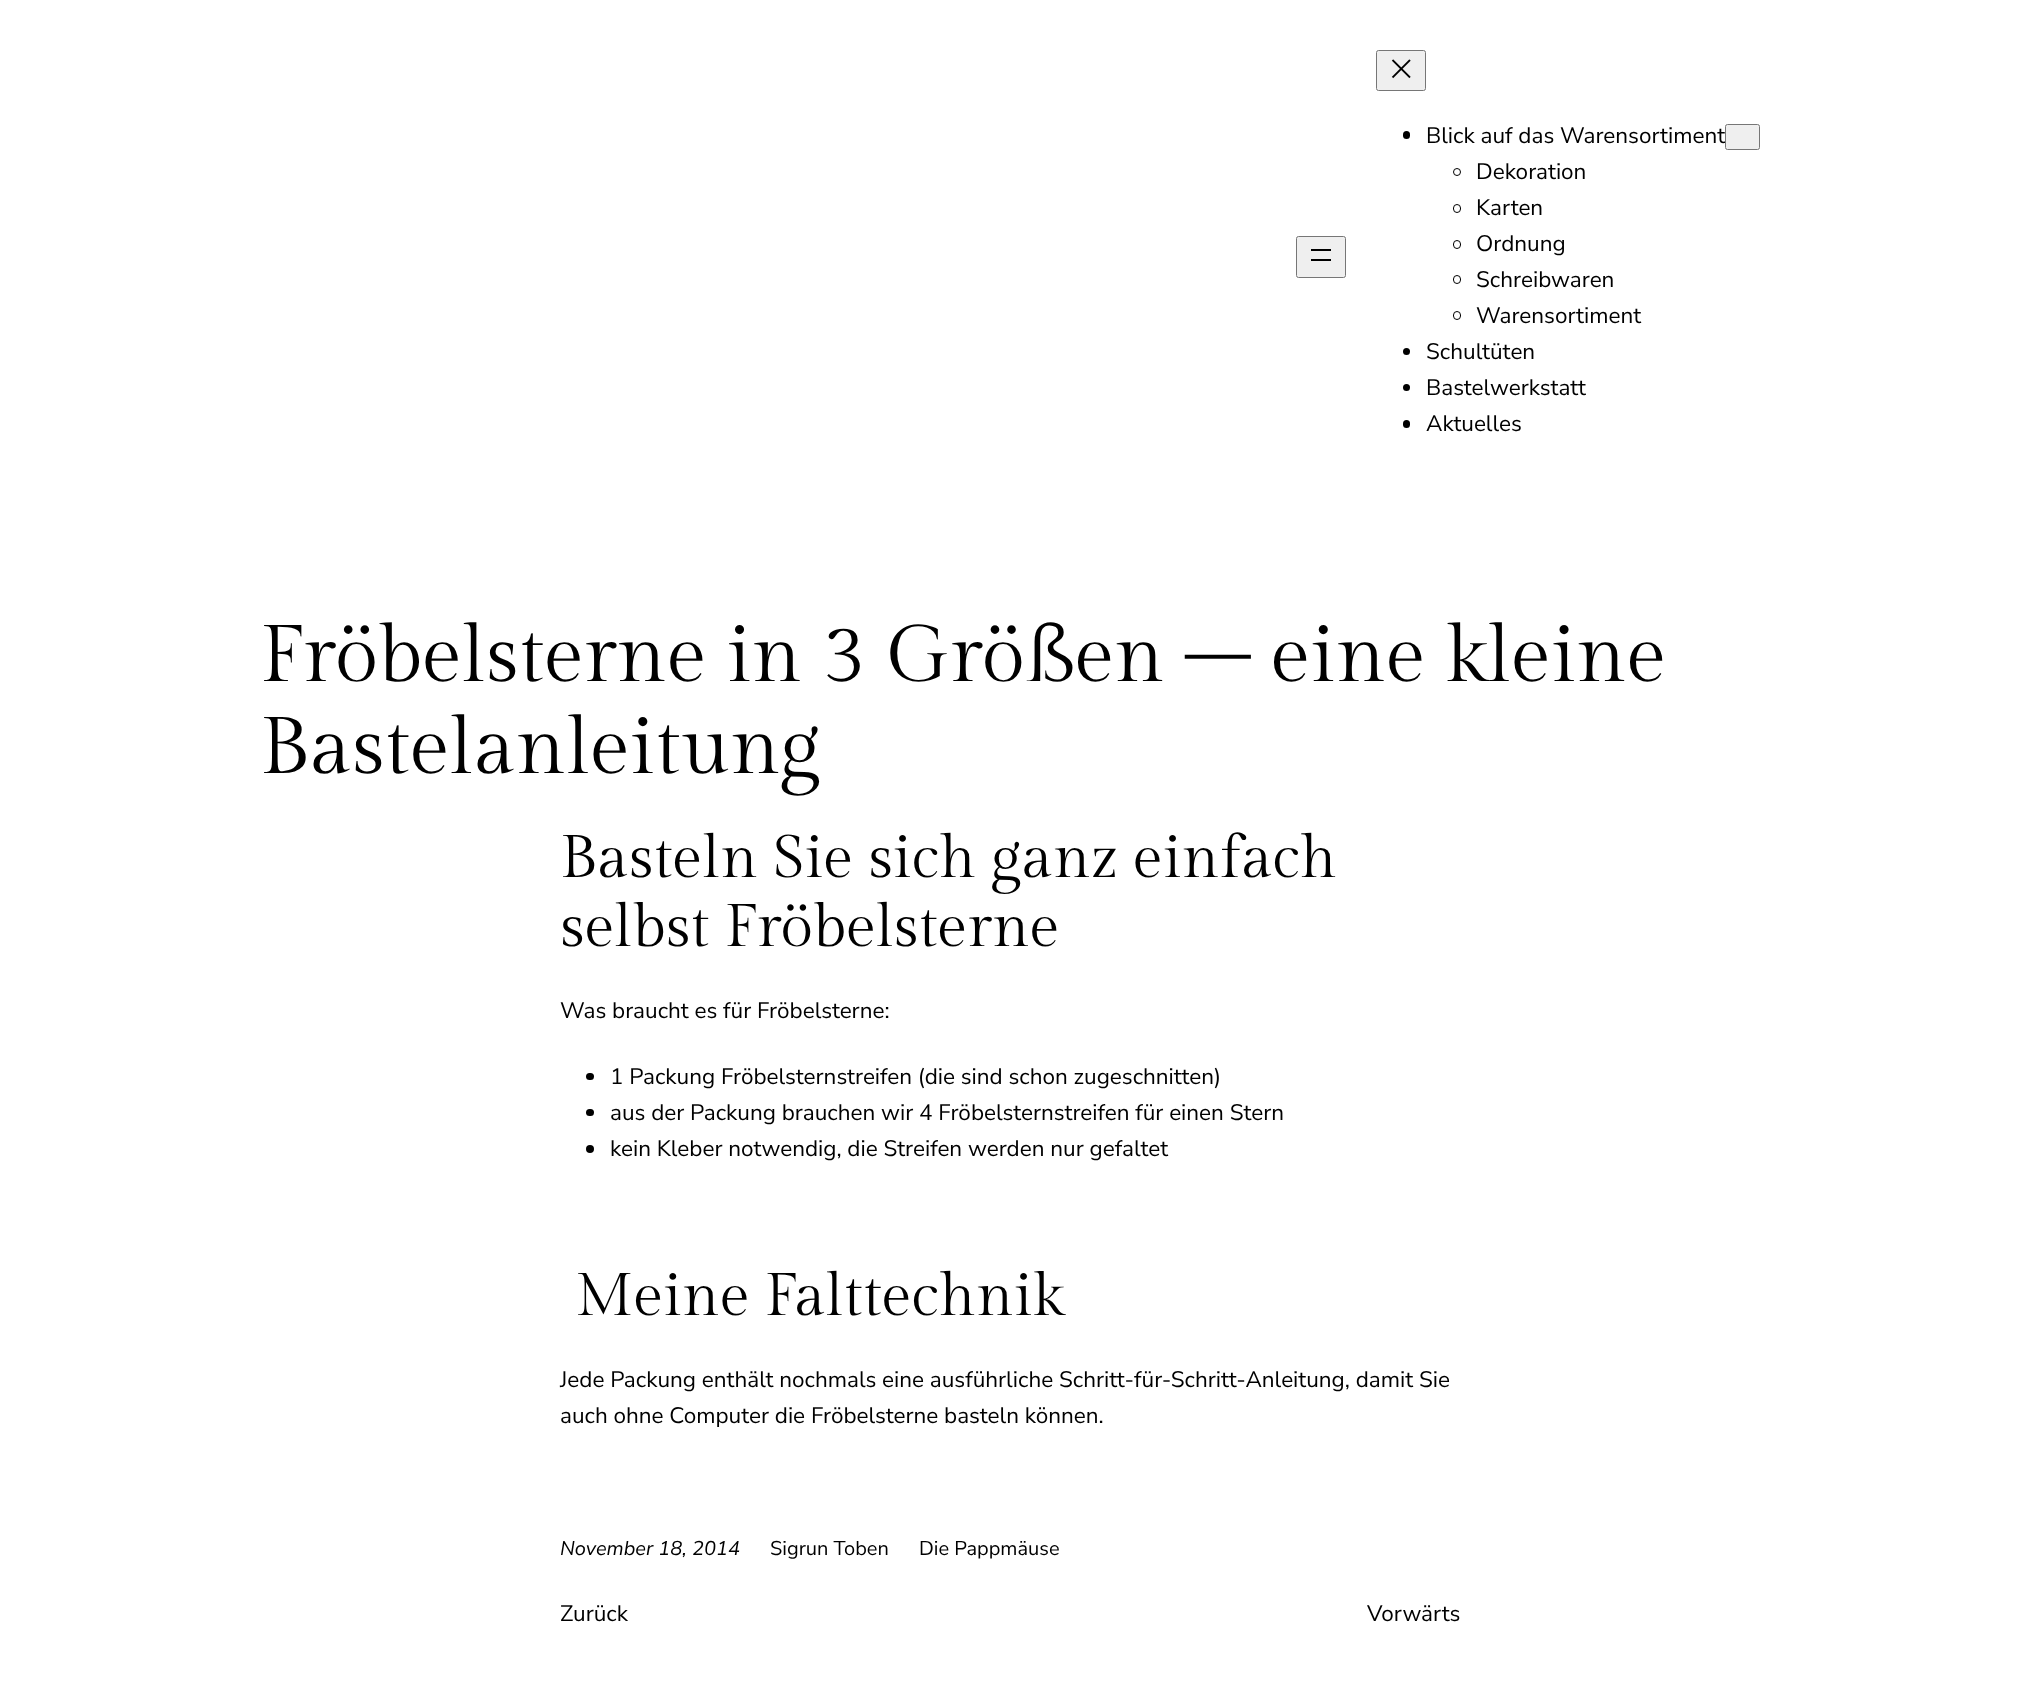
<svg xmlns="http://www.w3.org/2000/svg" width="2019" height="1706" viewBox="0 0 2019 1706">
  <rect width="100%" height="100%" fill="rgb(255,255,255)"/>
  <rect x="1296.5" y="236.5" width="49" height="41" rx="2" fill="rgb(239,239,239)" stroke="rgb(118,118,118)"/>
  <rect x="1311" y="249" width="20" height="2" fill="rgb(0,0,0)"/>
  <rect x="1311" y="259" width="20" height="2" fill="rgb(0,0,0)"/>
  <rect x="1376.5" y="50.5" width="49" height="40" rx="2" fill="rgb(239,239,239)" stroke="rgb(118,118,118)"/>
  <image x="1391" y="59" width="20" height="20" href="pic1.png"/>
  <rect x="1403" y="131" width="7" height="8" rx="3.5" fill="rgb(0,0,0)"/>
  <text x="1426" y="143" font-family="Nunito Sans" font-size="22.5" fill="rgb(0,0,0)">Blick auf das Warensortiment</text>
  <rect x="1725.5" y="124.5" width="34" height="25" rx="2" fill="rgb(239,239,239)" stroke="rgb(118,118,118)"/>
  <circle cx="1457" cy="172" r="3.5" fill="none" stroke="rgb(0,0,0)"/>
  <text x="1476" y="179" font-family="Nunito Sans" font-size="22.5" fill="rgb(0,0,0)">Dekoration</text>
  <rect x="1453.5" y="204.5" width="7" height="8" rx="3.5" fill="none" stroke="rgb(0,0,0)"/>
  <text x="1476" y="215" font-family="Nunito Sans" font-size="22.5" fill="rgb(0,0,0)">Karten</text>
  <rect x="1453.5" y="240.5" width="7" height="8" rx="3.5" fill="none" stroke="rgb(0,0,0)"/>
  <text x="1476" y="251" font-family="Nunito Sans" font-size="22.5" fill="rgb(0,0,0)">Ordnung</text>
  <rect x="1453.5" y="275.5" width="7" height="8" rx="3.5" fill="none" stroke="rgb(0,0,0)"/>
  <text x="1476" y="287" font-family="Nunito Sans" font-size="22.5" fill="rgb(0,0,0)">Schreibwaren</text>
  <rect x="1453.5" y="311.5" width="7" height="8" rx="3.5" fill="none" stroke="rgb(0,0,0)"/>
  <text x="1476" y="323" font-family="Nunito Sans" font-size="22.5" fill="rgb(0,0,0)">Warensortiment</text>
  <circle cx="1406.5" cy="351.5" r="3.5" fill="rgb(0,0,0)"/>
  <text x="1426" y="359" font-family="Nunito Sans" font-size="22.5" fill="rgb(0,0,0)">Schultüten</text>
  <circle cx="1406.5" cy="387.5" r="3.5" fill="rgb(0,0,0)"/>
  <text x="1426" y="395" font-family="Nunito Sans" font-size="22.5" fill="rgb(0,0,0)">Bastelwerkstatt</text>
  <rect x="1403" y="420" width="7" height="8" rx="3.5" fill="rgb(0,0,0)"/>
  <text x="1426" y="431" font-family="Nunito Sans" font-size="22.5" fill="rgb(0,0,0)">Aktuelles</text>
  <g font-family="Gilda Display" font-size="80" fill="rgb(0,0,0)">
    <text>
      <tspan x="260" y="681">Fröbelsterne in 3 Größen – eine kleine</tspan>
      <tspan x="260" y="773">Bastelanleitung</tspan>
    </text>
  </g>
  <g font-family="Gilda Display" font-size="60" fill="rgb(0,0,0)">
    <text>
      <tspan x="560" y="877">Basteln Sie sich ganz einfach</tspan>
      <tspan x="560" y="946">selbst Fröbelsterne</tspan>
    </text>
  </g>
  <text x="560" y="1018" font-family="Nunito Sans" font-size="22.5" fill="rgb(0,0,0)">Was braucht es für Fröbelsterne:</text>
  <rect x="586" y="1073" width="8" height="7" rx="3.5" fill="rgb(0,0,0)"/>
  <text x="610" y="1084" font-family="Nunito Sans" font-size="22.5" fill="rgb(0,0,0)">1 Packung Fröbelsternstreifen (die sind schon zugeschnitten)</text>
  <rect x="586" y="1109" width="8" height="7" rx="3.5" fill="rgb(0,0,0)"/>
  <text x="610" y="1120" font-family="Nunito Sans" font-size="22.5" fill="rgb(0,0,0)">aus der Packung brauchen wir 4 Fröbelsternstreifen für einen Stern</text>
  <circle cx="590" cy="1149" r="4" fill="rgb(0,0,0)"/>
  <text x="610" y="1156" font-family="Nunito Sans" font-size="22.5" fill="rgb(0,0,0)">kein Kleber notwendig, die Streifen werden nur gefaltet</text>
  <text x="575" y="1315" font-family="Gilda Display" font-size="60" fill="rgb(0,0,0)">Meine Falttechnik</text>
  <g font-family="Nunito Sans" font-size="22.5" fill="rgb(0,0,0)">
    <text>
      <tspan x="560" y="1387">Jede Packung enthält nochmals eine ausführliche Schritt-für-Schritt-Anleitung, damit Sie</tspan>
      <tspan x="560" y="1423">auch ohne Computer die Fröbelsterne basteln können.</tspan>
    </text>
  </g>
  <text x="560" y="1555" font-family="Nunito Sans" font-size="20" font-style="italic" fill="rgb(0,0,0)">November 18, 2014</text>
  <g font-family="Nunito Sans" font-size="20" fill="rgb(0,0,0)">
    <text x="770" y="1555">Sigrun Toben</text>
    <text x="919" y="1555">Die Pappmäuse</text>
  </g>
  <g font-family="Nunito Sans" font-size="22.5" fill="rgb(0,0,0)">
    <text x="560" y="1621">Zurück</text>
    <text x="1367" y="1621">Vorwärts</text>
  </g>
</svg>
